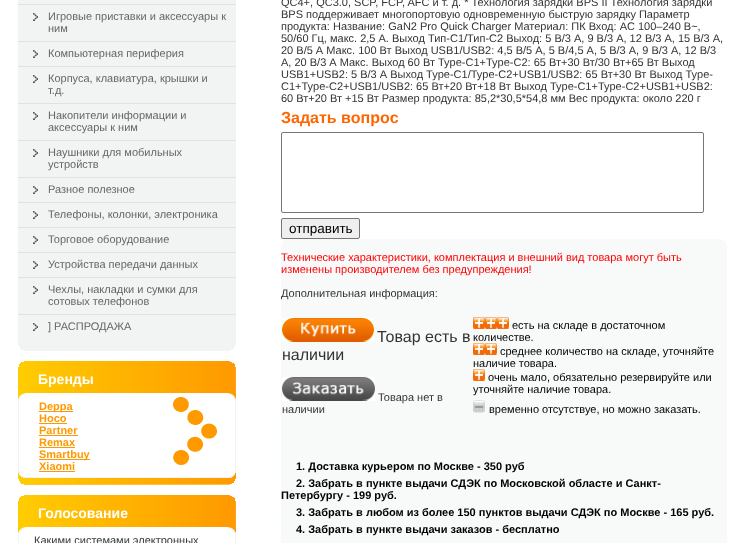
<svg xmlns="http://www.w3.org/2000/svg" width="755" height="543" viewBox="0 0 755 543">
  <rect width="100%" height="100%" fill="rgb(255,255,255)"/>
  <rect x="18" y="0" width="218" height="351" fill="rgb(242,243,243)"/>
  <rect x="18" y="4" width="218" height="1" fill="rgb(226,226,226)"/>
  <image x="33" y="13" width="5" height="8" href="pic1.png"/>
  <rect x="18" y="41" width="218" height="1" fill="rgb(226,226,226)"/>
  <g font-family="Liberation Sans" font-size="11" fill="rgb(102,102,102)">
    <text>
      <tspan x="48" y="20">Игровые приставки и аксессуары к</tspan>
      <tspan x="48" y="32">ним</tspan>
    </text>
  </g>
  <image x="33" y="50" width="5" height="8" href="pic1.png"/>
  <rect x="18" y="66" width="218" height="1" fill="rgb(226,226,226)"/>
  <text x="48" y="57" font-family="Liberation Sans" font-size="11" fill="rgb(102,102,102)">Компьютерная периферия</text>
  <image x="33" y="75" width="5" height="8" href="pic1.png"/>
  <rect x="18" y="103" width="218" height="1" fill="rgb(226,226,226)"/>
  <g font-family="Liberation Sans" font-size="11" fill="rgb(102,102,102)">
    <text>
      <tspan x="48" y="82">Корпуса, клавиатура, крышки и</tspan>
      <tspan x="48" y="94">т.д.</tspan>
    </text>
  </g>
  <image x="33" y="112" width="5" height="8" href="pic1.png"/>
  <rect x="18" y="140" width="218" height="1" fill="rgb(226,226,226)"/>
  <g font-family="Liberation Sans" font-size="11" fill="rgb(102,102,102)">
    <text>
      <tspan x="48" y="119">Накопители информации и</tspan>
      <tspan x="48" y="131">аксессуары к ним</tspan>
    </text>
  </g>
  <image x="33" y="149" width="5" height="8" href="pic1.png"/>
  <rect x="18" y="177" width="218" height="1" fill="rgb(226,226,226)"/>
  <g font-family="Liberation Sans" font-size="11" fill="rgb(102,102,102)">
    <text>
      <tspan x="48" y="156">Наушники для мобильных</tspan>
      <tspan x="48" y="168">устройств</tspan>
    </text>
  </g>
  <image x="33" y="186" width="5" height="8" href="pic1.png"/>
  <rect x="18" y="202" width="218" height="1" fill="rgb(226,226,226)"/>
  <text x="48" y="193" font-family="Liberation Sans" font-size="11" fill="rgb(102,102,102)">Разное полезное</text>
  <image x="33" y="211" width="5" height="8" href="pic1.png"/>
  <rect x="18" y="227" width="218" height="1" fill="rgb(226,226,226)"/>
  <text x="48" y="218" font-family="Liberation Sans" font-size="11" fill="rgb(102,102,102)">Телефоны, колонки, электроника</text>
  <image x="33" y="236" width="5" height="8" href="pic1.png"/>
  <rect x="18" y="252" width="218" height="1" fill="rgb(226,226,226)"/>
  <text x="48" y="243" font-family="Liberation Sans" font-size="11" fill="rgb(102,102,102)">Торговое оборудование</text>
  <image x="33" y="261" width="5" height="8" href="pic1.png"/>
  <rect x="18" y="277" width="218" height="1" fill="rgb(226,226,226)"/>
  <text x="48" y="268" font-family="Liberation Sans" font-size="11" fill="rgb(102,102,102)">Устройства передачи данных</text>
  <image x="33" y="286" width="5" height="8" href="pic1.png"/>
  <rect x="18" y="314" width="218" height="1" fill="rgb(226,226,226)"/>
  <g font-family="Liberation Sans" font-size="11" fill="rgb(102,102,102)">
    <text>
      <tspan x="48" y="293">Чехлы, накладки и сумки для</tspan>
      <tspan x="48" y="305">сотовых телефонов</tspan>
    </text>
  </g>
  <image x="33" y="323" width="5" height="8" href="pic1.png"/>
  <text x="48" y="330" font-family="Liberation Sans" font-size="11" fill="rgb(102,102,102)">] РАСПРОДАЖА</text>
  <image x="18" y="345" width="6" height="6" href="pic2.png"/>
  <image x="230" y="345" width="6" height="6" href="pic3.png"/>
  <image x="18" y="361" width="218" height="123" href="pic4.png"/>
  <image x="18" y="361" width="6" height="6" href="pic5.png"/>
  <image x="230" y="361" width="6" height="6" href="pic6.png"/>
  <text x="38" y="384" font-family="Liberation Sans" font-size="14" font-weight="bold" fill="rgb(255,255,255)">Бренды</text>
  <rect x="19" y="393" width="216" height="79" fill="rgb(255,255,255)"/>
  <rect x="18" y="393" width="1" height="79" fill="rgb(242,243,243)"/>
  <image x="18" y="393" width="7" height="6" href="pic7.png"/>
  <rect x="235" y="393" width="1" height="79" fill="rgb(242,243,243)"/>
  <image x="228" y="393" width="8" height="6" href="pic8.png"/>
  <image x="173" y="397" width="44" height="68" href="pic9.png"/>
  <rect x="39" y="411" width="34" height="1" fill="rgb(255,153,0)"/>
  <g font-family="Liberation Sans" font-size="11" font-weight="bold" fill="rgb(255,153,0)">
    <text>
      <tspan x="39" y="410">Deppa</tspan>
      <tspan x="39" y="422">Hoco</tspan>
    </text>
  </g>
  <rect x="39" y="423" width="28" height="1" fill="rgb(255,153,0)"/>
  <text x="39" y="434" font-family="Liberation Sans" font-size="11" font-weight="bold" fill="rgb(255,153,0)">Partner</text>
  <rect x="39" y="435" width="39" height="1" fill="rgb(255,153,0)"/>
  <text x="39" y="446" font-family="Liberation Sans" font-size="11" font-weight="bold" fill="rgb(255,153,0)">Remax</text>
  <rect x="39" y="447" width="36" height="1" fill="rgb(255,153,0)"/>
  <rect x="39" y="459" width="51" height="1" fill="rgb(255,153,0)"/>
  <g font-family="Liberation Sans" font-size="11" font-weight="bold" fill="rgb(255,153,0)">
    <text>
      <tspan x="39" y="458">Smartbuy</tspan>
      <tspan x="39" y="470">Xiaomi</tspan>
    </text>
  </g>
  <rect x="39" y="471" width="36" height="1" fill="rgb(255,153,0)"/>
  <rect x="18" y="472" width="218" height="5" fill="rgb(255,255,255)"/>
  <rect x="18" y="477" width="218" height="1" fill="rgb(242,243,243)"/>
  <image x="18" y="472" width="6" height="6" href="pic10.png"/>
  <image x="230" y="472" width="6" height="6" href="pic11.png"/>
  <rect x="18" y="484" width="218" height="1" fill="rgb(255,194,63)"/>
  <image x="18" y="479" width="6" height="6" href="pic12.png"/>
  <image x="230" y="479" width="6" height="6" href="pic13.png"/>
  <image x="18" y="495" width="218" height="32" href="pic14.png"/>
  <image x="18" y="495" width="6" height="6" href="pic5.png"/>
  <image x="230" y="495" width="6" height="6" href="pic6.png"/>
  <text x="38" y="518" font-family="Liberation Sans" font-size="14" font-weight="bold" fill="rgb(255,255,255)">Голосование</text>
  <rect x="18" y="527" width="1" height="16" fill="rgb(242,243,243)"/>
  <image x="18" y="527" width="7" height="6" href="pic7.png"/>
  <rect x="235" y="527" width="1" height="16" fill="rgb(242,243,243)"/>
  <image x="228" y="527" width="8" height="6" href="pic8.png"/>
  <text x="34" y="544" font-family="Liberation Sans" font-size="11" fill="rgb(51,57,57)">Какими системами электронных</text>
  <g font-family="Liberation Sans" font-size="11" fill="rgb(51,51,51)">
    <text>
      <tspan x="281" y="6">QC4+, QC3.0, SCP, FCP, AFC и т. д. * Технология зарядки BPS II Технология зарядки</tspan>
      <tspan x="281" y="18">BPS поддерживает многопортовую одновременную быструю зарядку Параметр</tspan>
      <tspan x="281" y="30">продукта: Название: GaN2 Pro Quick Charger Материал: ПК Вход: AC 100–240 В~,</tspan>
      <tspan x="281" y="42">50/60 Гц, макс. 2,5 А. Выход Тип-C1/Тип-C2 Выход: 5 В/3 А, 9 В/3 А, 12 В/3 А, 15 В/3 А,</tspan>
      <tspan x="281" y="54">20 В/5 А Макс. 100 Вт Выход USB1/USB2: 4,5 В/5 А, 5 В/4,5 А, 5 В/3 А, 9 В/3 А, 12 В/3</tspan>
      <tspan x="281" y="66">А, 20 В/3 А Макс. Выход 60 Вт Type-C1+Type-C2: 65 Вт+30 Вт/30 Вт+65 Вт Выход</tspan>
      <tspan x="281" y="78">USB1+USB2: 5 В/3 А Выход Type-C1/Type-C2+USB1/USB2: 65 Вт+30 Вт Выход Type-</tspan>
      <tspan x="281" y="90">C1+Type-C2+USB1/USB2: 65 Вт+20 Вт+18 Вт Выход Type-C1+Type-C2+USB1+USB2:</tspan>
      <tspan x="281" y="102">60 Вт+20 Вт +15 Вт Размер продукта: 85,2*30,5*54,8 мм Вес продукта: около 220 г</tspan>
    </text>
  </g>
  <text x="281" y="123" font-family="Liberation Sans" font-size="16" font-weight="bold" fill="rgb(255,102,0)">Задать вопроc</text>
  <rect x="281.5" y="132.5" width="422" height="80" rx="1.5" fill="none" stroke="rgb(118,118,118)"/>
  <rect x="281.5" y="218.5" width="78" height="20" rx="1.5" fill="rgb(239,239,239)" stroke="rgb(118,118,118)"/>
  <text x="289" y="233" font-family="Liberation Sans" font-size="13.5" fill="rgb(0,0,0)">отправить</text>
  <rect x="281" y="239" width="446" height="304" fill="rgb(248,250,249)"/>
  <image x="281" y="239" width="6" height="6" href="pic15.png"/>
  <image x="721" y="239" width="6" height="6" href="pic16.png"/>
  <g font-family="Liberation Sans" font-size="11" fill="rgb(255,0,2)">
    <text>
      <tspan x="281" y="261">Технические характеристики, комплектация и внешний вид товара могут быть</tspan>
      <tspan x="281" y="273">изменены производителем без предупреждения!</tspan>
    </text>
  </g>
  <text x="281" y="297" font-family="Liberation Sans" font-size="11" fill="rgb(51,51,51)">Дополнительная информация:</text>
  <image x="282" y="318" width="92" height="24" href="pic17.png"/>
  <g font-family="Liberation Sans" font-size="16" fill="rgb(51,51,51)">
    <text x="377" y="342">Товар есть в</text>
    <text x="282" y="360">наличии</text>
  </g>
  <image x="473" y="317" width="12" height="12" href="pic18.png"/>
  <image x="485" y="317" width="12" height="12" href="pic18.png"/>
  <image x="497" y="317" width="12" height="12" href="pic18.png"/>
  <g font-family="Liberation Sans" font-size="11" fill="rgb(0,0,0)">
    <text x="512" y="329">есть на складе в достаточном</text>
    <text x="473" y="341">количестве.</text>
  </g>
  <image x="473" y="343" width="12" height="12" href="pic18.png"/>
  <image x="485" y="343" width="12" height="12" href="pic18.png"/>
  <g font-family="Liberation Sans" font-size="11" fill="rgb(0,0,0)">
    <text x="500" y="355">среднее количество на складе, уточняйте</text>
    <text x="473" y="367">наличие товара.</text>
  </g>
  <image x="473" y="369" width="12" height="12" href="pic18.png"/>
  <g font-family="Liberation Sans" font-size="11" fill="rgb(0,0,0)">
    <text x="488" y="381">очень мало, обязательно резервируйте или</text>
    <text x="473" y="393">уточняйте наличие товара.</text>
  </g>
  <image x="473" y="400" width="13" height="13" href="pic19.png"/>
  <text x="489" y="413" font-family="Liberation Sans" font-size="11" fill="rgb(0,0,0)">временно отсутствуе, но можно заказать.</text>
  <image x="282" y="377" width="93" height="24" href="pic20.png"/>
  <g font-family="Liberation Sans" font-size="11" fill="rgb(51,51,51)">
    <text x="378" y="401">Товара нет в</text>
    <text x="282" y="413">наличии</text>
  </g>
  <g font-family="Liberation Sans" font-size="11" font-weight="bold" fill="rgb(0,0,0)">
    <text>
      <tspan x="296" y="470">1. Доставка курьером по Москве - 350 руб</tspan>
      <tspan x="296" y="487">2. Забрать в пункте выдачи СДЭК по Московской областе и Санкт-</tspan>
    </text>
    <text x="281" y="499">Петербургу - 199 руб.</text>
    <text>
      <tspan x="296" y="516">3. Забрать в любом из более 150 пунктов выдачи СДЭК по Москве - 165 руб.</tspan>
      <tspan x="296" y="533">4. Забрать в пункте выдачи заказов - бесплатно</tspan>
    </text>
  </g>
</svg>
